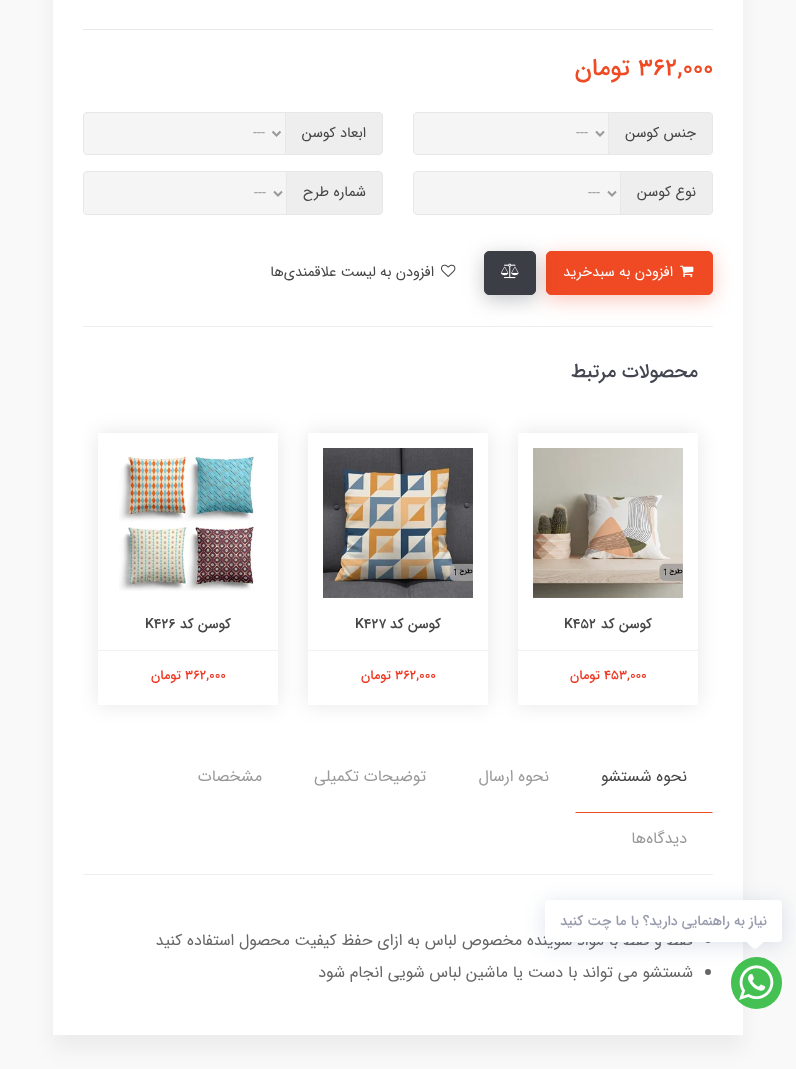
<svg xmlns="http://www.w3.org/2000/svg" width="796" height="1069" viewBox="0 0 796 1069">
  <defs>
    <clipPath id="clip1"><path d="M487 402H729V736H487ZM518 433H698V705H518Z" clip-rule="evenodd"/></clipPath>
    <clipPath id="clip2"><path d="M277 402H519V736H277ZM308 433H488V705H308Z" clip-rule="evenodd"/></clipPath>
    <clipPath id="clip3"><path d="M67 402H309V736H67ZM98 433H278V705H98Z" clip-rule="evenodd"/></clipPath>
  </defs>
  <rect width="100%" height="100%" fill="rgb(249,249,249)"/>
  <rect x="53" y="-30" width="690" height="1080" fill="rgba(0,0,0,0.05)" filter="blur(10px)"/>
  <rect x="53" y="0" width="690" height="1035" fill="rgb(255,255,255)"/>
  <rect x="83" y="29" width="630" height="1" fill="rgb(234,234,234)"/>
  <text x="638" y="75" font-family="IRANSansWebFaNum" font-size="24" font-weight="500" fill="rgb(239,74,35)">362,000</text>
  <text x="630" y="75" font-family="IRANSansWebFaNum" font-size="24" font-weight="500" direction="rtl" fill="rgb(239,74,35)">تومان</text>
  <path d="M608.5 112.5H709C711 112.5 712.5 114 712.5 116V151C712.5 153 711 154.5 709 154.5H608.5Z" fill="rgb(238,238,238)" stroke="rgb(231,231,231)"/>
  <text x="696" y="137" font-family="IRANSansWebFaNum" font-size="14.4" direction="rtl" fill="rgb(68,68,68)">جنس کوسن</text>
  <path d="M417 112.5H608.5V154.5H417C415 154.5 413.5 153 413.5 151V116C413.5 114 415 112.5 417 112.5Z" fill="rgb(245,245,245)" stroke="rgb(231,231,231)"/>
  <path d="M596 131.5L600 135.5L604 131.5" fill="none" stroke="rgb(153,153,153)" stroke-width="2"/>
  <text x="576" y="137" font-family="IRANSansWebFaNum" font-size="14.4" fill="rgb(153,153,153)">---</text>
  <path d="M285.5 112.5H379C381 112.5 382.5 114 382.5 116V151C382.5 153 381 154.5 379 154.5H285.5Z" fill="rgb(238,238,238)" stroke="rgb(231,231,231)"/>
  <text x="366" y="137" font-family="IRANSansWebFaNum" font-size="14.4" direction="rtl" fill="rgb(68,68,68)">ابعاد کوسن</text>
  <path d="M87 112.5H285.5V154.5H87C85 154.5 83.5 153 83.5 151V116C83.5 114 85 112.5 87 112.5Z" fill="rgb(245,245,245)" stroke="rgb(231,231,231)"/>
  <path d="M272.5 131.5L276.5 135.5L280.5 131.5" fill="none" stroke="rgb(153,153,153)" stroke-width="2"/>
  <text x="253" y="137" font-family="IRANSansWebFaNum" font-size="14.4" fill="rgb(153,153,153)">---</text>
  <path d="M620.5 171.5H709C711 171.5 712.5 173 712.5 175V211C712.5 213 711 214.5 709 214.5H620.5Z" fill="rgb(238,238,238)" stroke="rgb(231,231,231)"/>
  <text x="696" y="196" font-family="IRANSansWebFaNum" font-size="14.4" direction="rtl" fill="rgb(68,68,68)">نوع کوسن</text>
  <path d="M417 171.5H620.5V214.5H417C415 214.5 413.5 213 413.5 211V175C413.5 173 415 171.5 417 171.5Z" fill="rgb(245,245,245)" stroke="rgb(231,231,231)"/>
  <path d="M608 191.5L612 195.5L616 191.5" fill="none" stroke="rgb(153,153,153)" stroke-width="2"/>
  <text x="588" y="197" font-family="IRANSansWebFaNum" font-size="14.4" fill="rgb(153,153,153)">---</text>
  <path d="M286.5 171.5H379C381 171.5 382.5 173 382.5 175V211C382.5 213 381 214.5 379 214.5H286.5Z" fill="rgb(238,238,238)" stroke="rgb(231,231,231)"/>
  <text x="366" y="196" font-family="IRANSansWebFaNum" font-size="14.4" direction="rtl" fill="rgb(68,68,68)">شماره طرح</text>
  <path d="M87 171.5H286.5V214.5H87C85 214.5 83.5 213 83.5 211V175C83.5 173 85 171.5 87 171.5Z" fill="rgb(245,245,245)" stroke="rgb(231,231,231)"/>
  <path d="M274 191.5L278 195.5L282 191.5" fill="none" stroke="rgb(153,153,153)" stroke-width="2"/>
  <text x="254" y="197" font-family="IRANSansWebFaNum" font-size="14.4" fill="rgb(153,153,153)">---</text>
  <rect x="83" y="326" width="630" height="1" fill="rgb(238,238,238)"/>
  <rect x="546" y="256" width="167" height="44" rx="5" fill="rgba(239,74,35,0.3)" filter="blur(10px)"/>
  <rect x="546.5" y="251.5" width="166" height="43" rx="4.5" fill="rgb(239,74,35)" stroke="rgb(239,74,35)"/>
  <image x="680" y="265" width="14" height="12" href="pic1.png"/>
  <text x="673" y="276" font-family="IRANSansWebFaNum" font-size="14.4" direction="rtl" fill="rgb(255,255,255)">افزودن به سبدخرید</text>
  <rect x="484" y="256" width="52" height="44" rx="5" fill="rgba(60,62,70,0.3)" filter="blur(10px)"/>
  <rect x="484.5" y="251.5" width="51" height="43" rx="4.5" fill="rgb(60,62,70)" stroke="rgb(60,62,70)"/>
  <image x="501" y="263" width="18" height="16" href="pic2.png"/>
  <image x="441" y="264" width="15" height="13" href="pic3.png"/>
  <text x="434" y="276" font-family="IRANSansWebFaNum" font-size="14.4" direction="rtl" fill="rgb(68,68,68)">افزودن به لیست علاقمندی‌ها</text>
  <text x="698" y="377" font-family="IRANSansWebFaNum" font-size="19.25" font-weight="500" direction="rtl" fill="rgb(67,69,80)">محصولات مرتبط</text>
  <g clip-path="url(#clip1)">
    <rect x="518" y="433" width="180" height="272" fill="rgba(0,0,0,0.1)" filter="blur(10px)"/>
  </g>
  <image x="533" y="448" width="150" height="150" href="pic4.png"/>
  <rect x="518" y="650" width="180" height="1" fill="rgb(242,242,242)"/>
  <text x="652" y="628" font-family="IRANSansWebFaNum" font-size="14" font-weight="500" direction="rtl" fill="rgb(68,68,68)">کوسن کد</text>
  <text x="564" y="628" font-family="IRANSansWebFaNum" font-size="14" font-weight="500" fill="rgb(68,68,68)">K452</text>
  <text x="604" y="679" font-family="IRANSansWebFaNum" font-size="13" font-weight="500" fill="rgb(238,56,35)">453,000</text>
  <text x="600" y="679" font-family="IRANSansWebFaNum" font-size="13" font-weight="500" direction="rtl" fill="rgb(238,56,35)">تومان</text>
  <g clip-path="url(#clip2)">
    <rect x="308" y="433" width="180" height="272" fill="rgba(0,0,0,0.1)" filter="blur(10px)"/>
  </g>
  <image x="323" y="448" width="150" height="150" href="pic5.png"/>
  <rect x="308" y="650" width="180" height="1" fill="rgb(242,242,242)"/>
  <text x="441" y="628" font-family="IRANSansWebFaNum" font-size="14" font-weight="500" direction="rtl" fill="rgb(68,68,68)">کوسن کد</text>
  <text x="355" y="628" font-family="IRANSansWebFaNum" font-size="14" font-weight="500" fill="rgb(68,68,68)">K427</text>
  <text x="395" y="679" font-family="IRANSansWebFaNum" font-size="13" font-weight="500" fill="rgb(238,56,35)">362,000</text>
  <text x="391" y="679" font-family="IRANSansWebFaNum" font-size="13" font-weight="500" direction="rtl" fill="rgb(238,56,35)">تومان</text>
  <g clip-path="url(#clip3)">
    <rect x="98" y="433" width="180" height="272" fill="rgba(0,0,0,0.1)" filter="blur(10px)"/>
  </g>
  <image x="119" y="454" width="136" height="137" href="pic6.png"/>
  <rect x="98" y="650" width="180" height="1" fill="rgb(242,242,242)"/>
  <text x="231" y="628" font-family="IRANSansWebFaNum" font-size="14" font-weight="500" direction="rtl" fill="rgb(68,68,68)">کوسن کد</text>
  <text x="145" y="628" font-family="IRANSansWebFaNum" font-size="14" font-weight="500" fill="rgb(68,68,68)">K426</text>
  <text x="185" y="679" font-family="IRANSansWebFaNum" font-size="13" font-weight="500" fill="rgb(238,56,35)">362,000</text>
  <text x="181" y="679" font-family="IRANSansWebFaNum" font-size="13" font-weight="500" direction="rtl" fill="rgb(238,56,35)">تومان</text>
  <rect x="83" y="874" width="630" height="1" fill="rgb(238,238,238)"/>
  <path d="M713 813L712 812H576L575 813Z" fill="rgb(239,74,35)"/>
  <text x="687" y="781" font-family="IRANSansWebFaNum" font-size="16" direction="rtl" fill="rgb(68,68,68)">نحوه شستشو</text>
  <g font-family="IRANSansWebFaNum" font-size="16" direction="rtl" fill="rgb(153,153,153)">
    <text x="549" y="781">نحوه ارسال</text>
    <text x="426" y="781">توضیحات تکمیلی</text>
    <text x="262" y="781">مشخصات</text>
    <text x="687" y="843">دیدگاه‌ها</text>
  </g>
  <circle cx="708" cy="940" r="3" fill="rgb(102,102,102)"/>
  <text x="693" y="945" font-family="IRANSansWebFaNum" font-size="16" direction="rtl" fill="rgb(102,102,102)">فقط و فقط با مواد شوینده مخصوص لباس به ازای حفظ کیفیت محصول استفاده کنید</text>
  <circle cx="708" cy="972" r="3" fill="rgb(102,102,102)"/>
  <text x="693" y="977" font-family="IRANSansWebFaNum" font-size="16" direction="rtl" fill="rgb(102,102,102)">شستشو می تواند با دست یا ماشین لباس شویی انجام شود</text>
  <rect x="731" y="957" width="51" height="52" rx="25.5" fill="rgb(69,193,83)"/>
  <image x="739" y="965" width="35" height="35" href="pic7.png"/>
  <rect x="545" y="903" width="237" height="42" rx="4" fill="rgba(25,63,125,0.15)" filter="blur(10px)"/>
  <rect x="545" y="900" width="237" height="42" rx="4" fill="rgb(255,255,255)"/>
  <text x="767" y="925" font-family="IRANSansWebFaNum" font-size="14" font-weight="500" direction="rtl" fill="rgb(152,156,173)">نیاز به راهنمایی دارید؟ با ما چت کنید</text>
  <path d="M755 933.5L763.5 942C754.5 951 755.5 951 746.5 942Z" fill="rgb(255,255,255)"/>
</svg>
